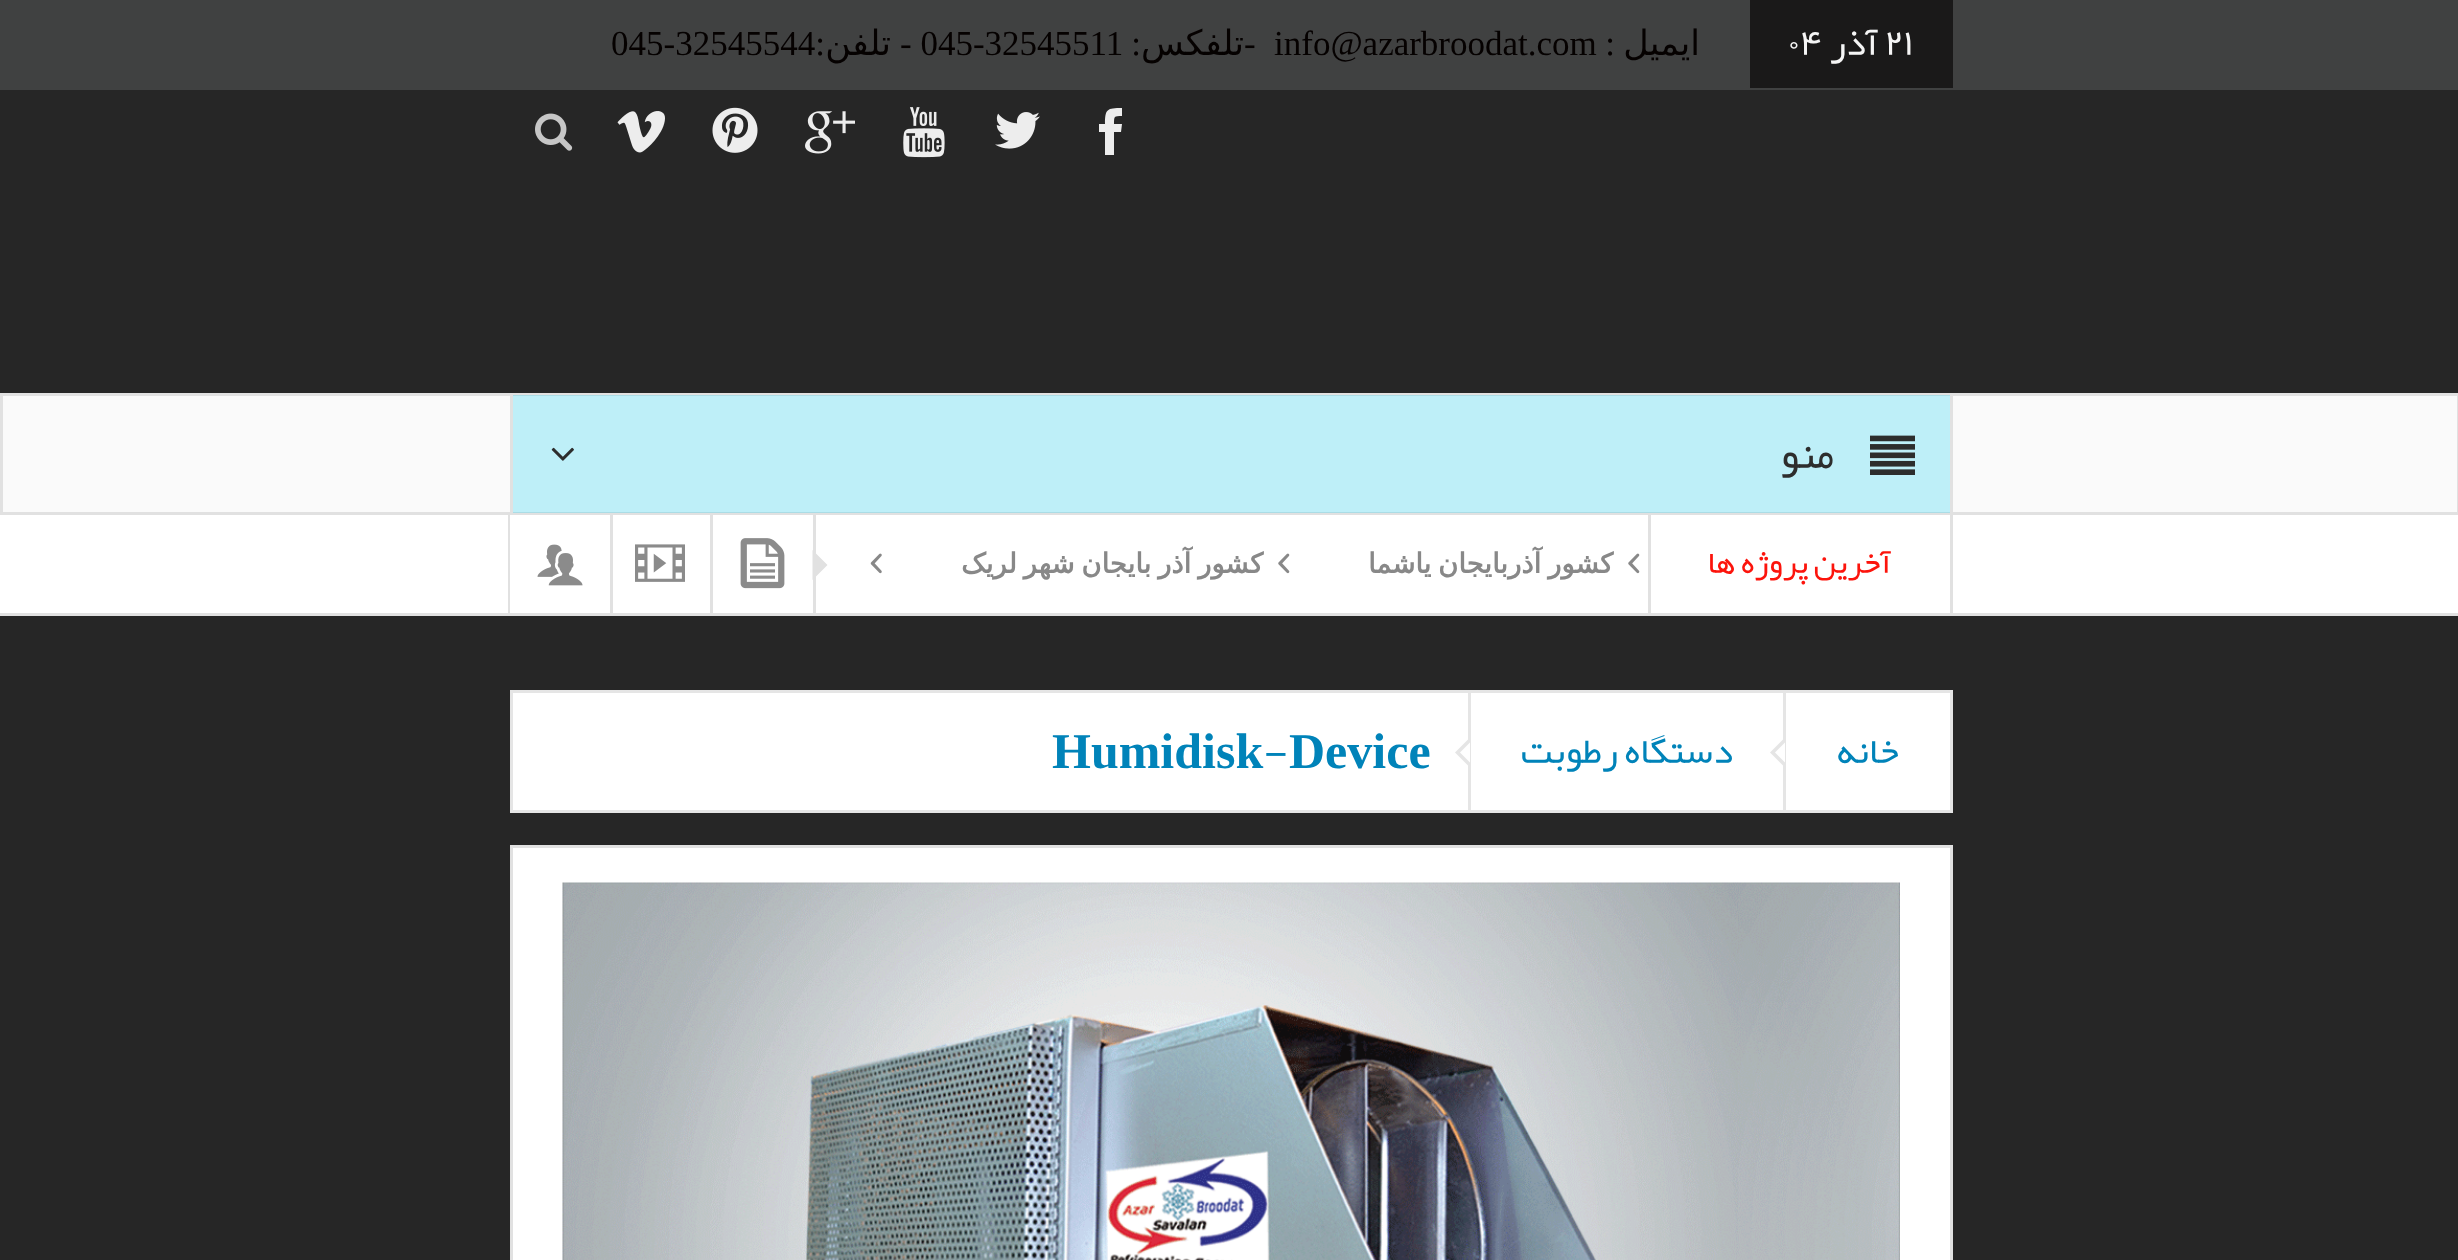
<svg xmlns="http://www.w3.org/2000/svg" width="2458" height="1260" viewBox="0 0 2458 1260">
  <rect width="100%" height="100%" fill="rgb(38,38,38)"/>
  <rect x="0" y="0" width="2458" height="90" fill="rgb(64,65,65)"/>
  <rect x="1750" y="0" width="203" height="88" fill="rgb(26,25,25)"/>
  <text x="1884" y="55" font-family="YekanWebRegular" font-size="37.5" fill="rgb(245,245,245)">۲۱</text>
  <text x="1878" y="55" font-family="YekanWebRegular" font-size="37.5" direction="rtl" fill="rgb(245,245,245)">آذر</text>
  <text x="1788" y="55" font-family="YekanWebRegular" font-size="37.5" fill="rgb(245,245,245)">۰۴</text>
  <text x="1700" y="55" font-family="DejaVu Sans" font-size="35" direction="rtl" fill="rgb(5,1,0)">ایمیل</text>
  <text x="1615" y="55" font-family="Liberation Serif" font-size="35" direction="rtl" fill="rgb(5,1,0)">:</text>
  <g font-family="Liberation Serif" font-size="35" fill="rgb(5,1,0)">
    <text x="1274" y="55">info@azarbroodat.com</text>
    <text x="1244" y="55">-</text>
  </g>
  <text x="1244" y="55" font-family="DejaVu Sans" font-size="35" direction="rtl" fill="rgb(5,1,0)">تلفکس</text>
  <text x="1141" y="55" font-family="Liberation Serif" font-size="35" direction="rtl" fill="rgb(5,1,0)">:</text>
  <text x="900" y="55" font-family="Liberation Serif" font-size="35" fill="rgb(5,1,0)">- 045-32545511</text>
  <text x="891" y="55" font-family="DejaVu Sans" font-size="35" direction="rtl" fill="rgb(5,1,0)">تلفن</text>
  <text x="825" y="55" font-family="Liberation Serif" font-size="35" direction="rtl" fill="rgb(5,1,0)">:</text>
  <text x="611" y="55" font-family="Liberation Serif" font-size="35" fill="rgb(5,1,0)">045-32545544</text>
  <path d="M1114 155H1105V132H1099V124H1105C1105 109 1107 108 1122 108V116C1114 116 1114 116 1114 124H1122L1121 132H1114Z" fill="rgb(237,237,237)"/>
  <image x="995" y="112" width="45" height="37" href="pic1.png"/>
  <image x="903" y="107" width="42" height="51" href="pic2.png"/>
  <image x="805" y="111" width="50" height="43" href="pic3.png"/>
  <image x="712" y="107" width="46" height="46" href="pic4.png"/>
  <image x="617" y="111" width="48" height="42" href="pic5.png"/>
  <image x="535" y="113" width="38" height="38" href="pic6.png"/>
  <rect x="1.5" y="394.5" width="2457" height="119" fill="rgb(250,250,250)" stroke="rgb(225,225,225)" stroke-width="3"/>
  <rect x="513" y="395" width="1437" height="118" fill="rgba(11,207,244,0.25)"/>
  <rect x="1950" y="395" width="3" height="118" fill="rgb(225,225,225)"/>
  <rect x="510" y="395" width="3" height="118" fill="rgb(225,225,225)"/>
  <image x="1870" y="435" width="45" height="40" href="pic7.png"/>
  <text x="1834" y="468" font-family="YekanWebRegular" font-size="42" direction="rtl" fill="rgb(45,45,45)">منو</text>
  <image x="551" y="447" width="23" height="14" href="pic8.png"/>
  <rect x="0" y="515" width="2458" height="98" fill="rgb(255,255,255)"/>
  <rect x="0" y="613" width="2458" height="3" fill="rgb(225,225,225)"/>
  <rect x="1950" y="515" width="3" height="98" fill="rgb(225,225,225)"/>
  <rect x="1648" y="515" width="3" height="98" fill="rgb(225,225,225)"/>
  <text x="1891" y="573" font-family="YekanWebRegular" font-size="32.5" direction="rtl" fill="rgb(252,20,12)">آخرین پروژه ها</text>
  <rect x="508" y="515" width="2" height="98" fill="rgb(225,225,225)"/>
  <image x="1628" y="553" width="12" height="21" href="pic9.png"/>
  <text x="1613" y="573" word-spacing="-2" font-family="DejaVu Sans" font-size="27.5" font-weight="bold" direction="rtl" fill="rgb(136,136,136)">کشور آذربایجان یاشما</text>
  <image x="1278" y="553" width="12" height="21" href="pic9.png"/>
  <text x="1263" y="573" word-spacing="-2" font-family="DejaVu Sans" font-size="27.5" font-weight="bold" direction="rtl" fill="rgb(136,136,136)">کشور آذر بایجان شهر لریک</text>
  <image x="870" y="553" width="12" height="21" href="pic10.png"/>
  <rect x="813" y="515" width="3" height="98" fill="rgb(225,225,225)"/>
  <path d="M812.5 580V550L827.5 565Z" fill="rgb(225,225,225)"/>
  <rect x="710" y="515" width="3" height="98" fill="rgb(225,225,225)"/>
  <image x="740" y="538" width="45" height="51" href="pic11.png"/>
  <image x="635" y="544" width="50" height="38" href="pic12.png"/>
  <rect x="610" y="515" width="3" height="98" fill="rgb(225,225,225)"/>
  <image x="537" y="544" width="46" height="42" href="pic13.png"/>
  <rect x="511.5" y="691.5" width="1440" height="120" fill="rgb(255,255,255)" stroke="rgb(229,229,229)" stroke-width="3"/>
  <rect x="1783" y="693" width="3" height="117" fill="rgb(229,229,229)"/>
  <text x="1899" y="763" font-family="YekanWebRegular" font-size="37.5" direction="rtl" fill="rgb(0,131,185)">خانه</text>
  <path d="M1785 737.5V767.5L1770 752.5Z" fill="rgb(229,229,229)"/>
  <path d="M1785 742.5V762.5L1775 752.5Z" fill="rgb(255,255,255)"/>
  <rect x="1468" y="693" width="3" height="117" fill="rgb(229,229,229)"/>
  <text x="1733" y="763" font-family="YekanWebRegular" font-size="37.5" direction="rtl" fill="rgb(0,131,185)">دستگاه رطوبت</text>
  <path d="M1470 737.5V767.5L1455 752.5Z" fill="rgb(229,229,229)"/>
  <path d="M1470 742.5V762.5L1460 752.5Z" fill="rgb(255,255,255)"/>
  <text x="1289" y="768" font-family="Liberation Serif" font-size="50" font-weight="bold" fill="rgb(0,131,185)">Device</text>
  <text x="1263" y="768" font-family="YekanWebRegular" font-size="50" fill="rgb(0,131,185)">-</text>
  <text x="1052" y="768" font-family="Liberation Serif" font-size="50" font-weight="bold" fill="rgb(0,131,185)">Humidisk</text>
  <rect x="511.5" y="846.5" width="1440" height="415" fill="rgb(255,255,255)" stroke="rgb(225,225,225)" stroke-width="3"/>
  <image x="562" y="882" width="1338" height="378" href="pic14.png"/>
</svg>
